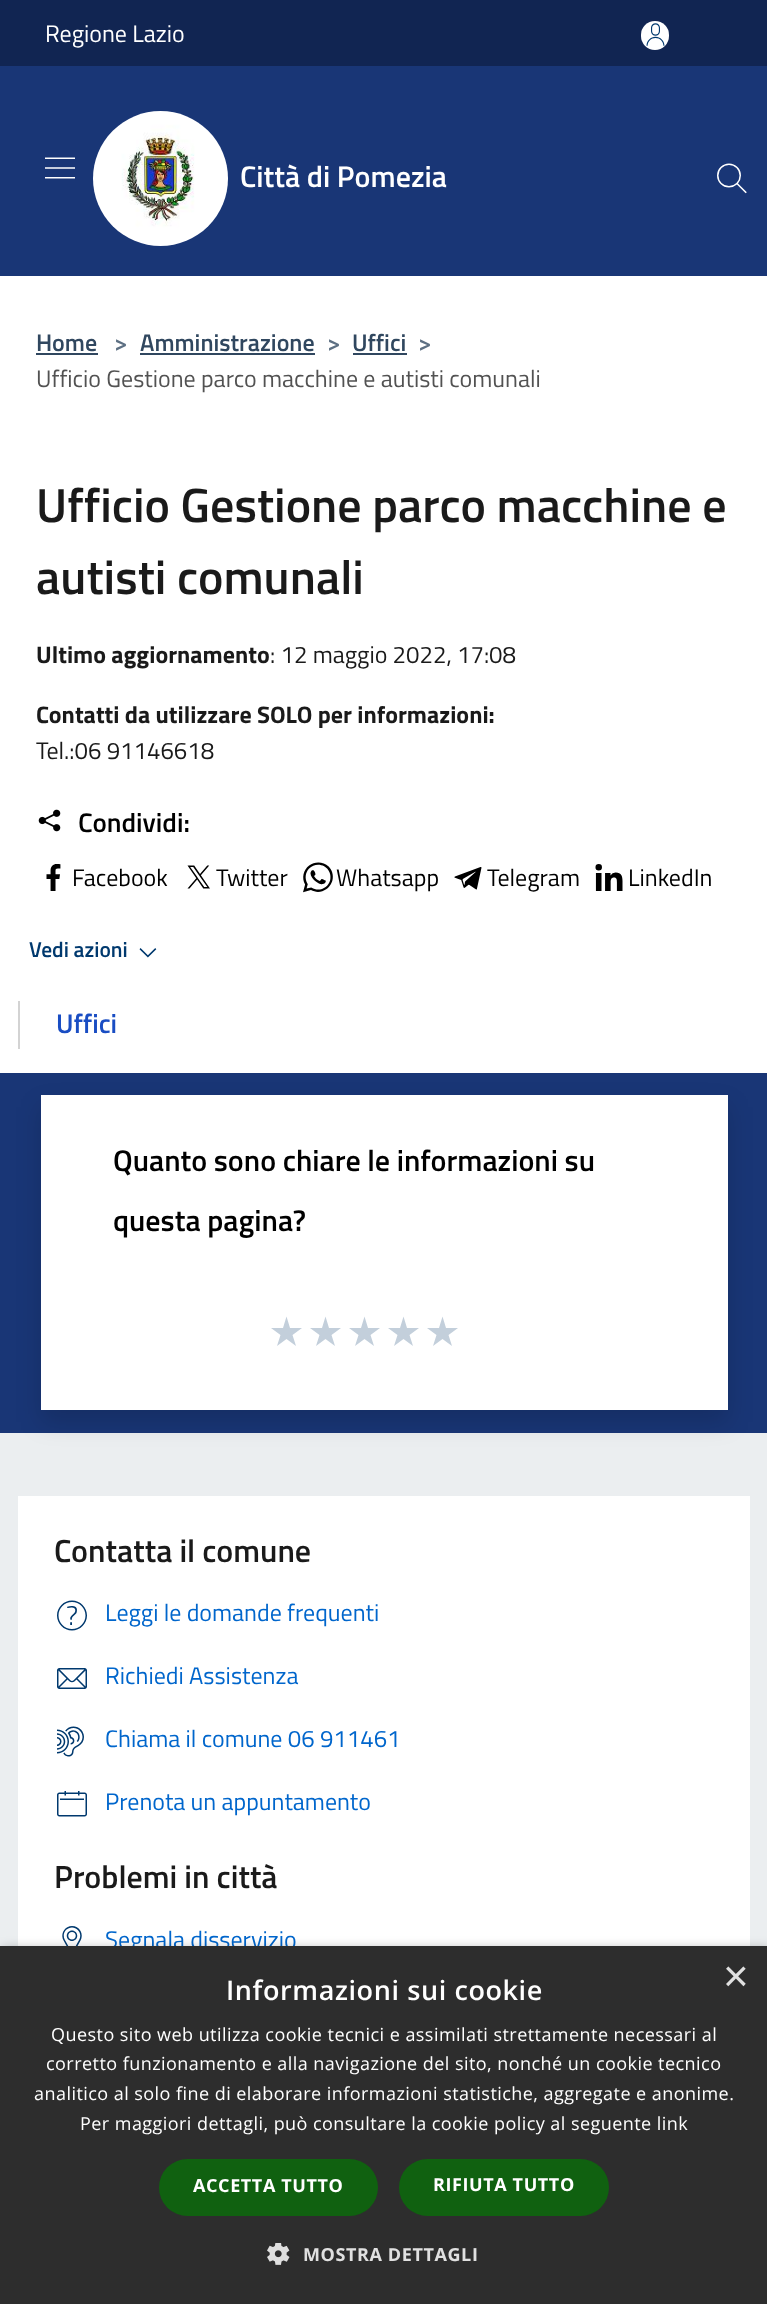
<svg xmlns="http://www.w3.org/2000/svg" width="767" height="2304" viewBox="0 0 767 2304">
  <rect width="100%" height="100%" fill="rgb(255,255,255)"/>
  <rect x="0" y="0" width="767" height="66" fill="rgb(17,37,82)"/>
  <text x="45" y="42" font-family="Titillium Web" font-size="24" fill="rgb(255,255,255)">Regione Lazio</text>
  <rect x="641" y="21" width="28" height="29" rx="14" fill="rgb(255,255,255)"/>
  <image x="646" y="23" width="19" height="23" href="pic1.png"/>
  <rect x="0" y="66" width="767" height="210" fill="rgb(25,54,118)"/>
  <image x="45" y="157" width="30" height="22" href="pic2.png"/>
  <image x="93" y="111" width="135" height="135" href="pic3.png"/>
  <text x="240" y="187" font-family="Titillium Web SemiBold" font-size="30" font-weight="600" fill="rgb(255,255,255)">Città di Pomezia</text>
  <image x="717" y="163" width="30" height="31" href="pic4.png"/>
  <text x="36" y="351" font-family="Titillium Web SemiBold" font-size="24" font-weight="600" fill="rgb(48,71,95)">Home</text>
  <rect x="36" y="353" width="62" height="2" fill="rgb(48,71,95)"/>
  <text x="114" y="351" font-family="Titillium Web SemiBold" font-size="24" font-weight="600" fill="rgb(93,112,131)">&gt;</text>
  <text x="140" y="351" font-family="Titillium Web SemiBold" font-size="24" font-weight="600" fill="rgb(48,71,95)">Amministrazione</text>
  <rect x="140" y="353" width="175" height="2" fill="rgb(48,71,95)"/>
  <text x="327" y="351" font-family="Titillium Web SemiBold" font-size="24" font-weight="600" fill="rgb(93,112,131)">&gt;</text>
  <text x="352" y="351" font-family="Titillium Web SemiBold" font-size="24" font-weight="600" fill="rgb(48,71,95)">Uffici</text>
  <rect x="353" y="353" width="54" height="2" fill="rgb(48,71,95)"/>
  <text x="418" y="351" font-family="Titillium Web SemiBold" font-size="24" font-weight="600" fill="rgb(93,112,131)">&gt;</text>
  <text x="36" y="387" font-family="Titillium Web" font-size="24" fill="rgb(82,82,82)">Ufficio Gestione parco macchine e autisti comunali</text>
  <g font-family="Titillium Web SemiBold" font-size="48" font-weight="600" fill="rgb(26,26,26)">
    <text>
      <tspan x="36" y="522">Ufficio Gestione parco macchine e</tspan>
      <tspan x="36" y="594">autisti comunali</tspan>
    </text>
  </g>
  <text x="36" y="663" font-family="Titillium Web" font-size="24" font-weight="bold" fill="rgb(26,26,26)">Ultimo aggiornamento</text>
  <text x="270" y="663" font-family="Titillium Web" font-size="24" fill="rgb(26,26,26)">: 12 maggio 2022, 17:08</text>
  <text x="36" y="723" font-family="Titillium Web" font-size="24" font-weight="bold" fill="rgb(26,26,26)">Contatti da utilizzare SOLO per informazioni:</text>
  <text x="36" y="759" font-family="Titillium Web" font-size="24" fill="rgb(26,26,26)">Tel.:06 91146618</text>
  <image x="38" y="809" width="23" height="23" href="pic5.png"/>
  <text x="78" y="832" font-family="Titillium Web SemiBold" font-size="27" font-weight="600" fill="rgb(0,0,0)">Condividi:</text>
  <image x="46" y="864" width="15" height="27" href="pic6.png"/>
  <text x="72" y="886" font-family="Titillium Web" font-size="24" fill="rgb(0,0,0)">Facebook</text>
  <image x="187" y="865" width="23" height="24" href="pic7.png"/>
  <text x="216" y="886" font-family="Titillium Web" font-size="24" fill="rgb(0,0,0)">Twitter</text>
  <image x="303" y="862" width="30" height="31" href="pic8.png"/>
  <text x="336" y="886" font-family="Titillium Web" font-size="24" fill="rgb(0,0,0)">Whatsapp</text>
  <image x="454" y="867" width="28" height="23" href="pic9.png"/>
  <text x="487" y="886" font-family="Titillium Web" font-size="24" fill="rgb(0,0,0)">Telegram</text>
  <image x="595" y="864" width="28" height="27" href="pic10.png"/>
  <text x="628" y="886" font-family="Titillium Web" font-size="24" fill="rgb(0,0,0)">LinkedIn</text>
  <text x="29" y="957" font-family="Titillium Web SemiBold" font-size="21.5" font-weight="600" fill="rgb(0,57,110)">Vedi azioni</text>
  <image x="139" y="948" width="18" height="10" href="pic11.png"/>
  <rect x="18" y="1001" width="2" height="48" fill="rgb(211,211,211)"/>
  <text x="56" y="1033" font-family="Titillium Web SemiBold" font-size="27" font-weight="600" fill="rgb(25,77,195)">Uffici</text>
  <rect x="0" y="1073" width="767" height="360" fill="rgb(25,54,118)"/>
  <rect x="0" y="1433" width="767" height="513" fill="rgb(235,238,240)"/>
  <rect x="41" y="1107" width="687" height="315" fill="rgba(0,0,0,0.15)" filter="blur(12px)"/>
  <rect x="41" y="1095" width="687" height="315" fill="rgb(255,255,255)"/>
  <g font-family="Titillium Web SemiBold" font-size="30" font-weight="600" fill="rgb(0,0,0)">
    <text x="113" y="1171">Quanto sono chiare le informazioni su</text>
    <text x="113" y="1231">questa pagina?</text>
  </g>
  <path d="M286.5 1316.5L283 1328H271L280.5 1335L277 1346L286.5 1339L296 1346L292.5 1335L302 1328H290Z" fill="rgb(195,207,219)"/>
  <path d="M325.5 1316.5L322 1328H310L319.5 1335L316 1346L325.5 1339L335 1346L331.5 1335L341 1328H329Z" fill="rgb(195,207,219)"/>
  <path d="M364.5 1316.5L361 1328H349L358.5 1335L355 1346L364.5 1339L374 1346L370.5 1335L380 1328H368Z" fill="rgb(195,207,219)"/>
  <path d="M403.5 1316.5L400 1328H388L397.5 1335L394 1346L403.5 1339L413 1346L409.5 1335L419 1328H407Z" fill="rgb(195,207,219)"/>
  <path d="M442.5 1316.5L439 1328H427L436.5 1335L433 1346L442.5 1339L452 1346L448.5 1335L458 1328H446Z" fill="rgb(195,207,219)"/>
  <rect x="18" y="1496" width="732" height="450" fill="rgb(255,255,255)"/>
  <text x="54" y="1562" font-family="Titillium Web SemiBold" font-size="32" font-weight="600" fill="rgb(26,26,26)">Contatta il comune</text>
  <image x="57" y="1600" width="30" height="31" href="pic12.png"/>
  <text x="105" y="1621" font-family="Titillium Web" font-size="24" fill="rgb(0,102,204)">Leggi le domande frequenti</text>
  <image x="57" y="1668" width="30" height="21" href="pic13.png"/>
  <text x="105" y="1684" font-family="Titillium Web" font-size="24" fill="rgb(0,102,204)">Richiedi Assistenza</text>
  <image x="57" y="1726" width="27" height="31" href="pic14.png"/>
  <text x="105" y="1747" font-family="Titillium Web" font-size="24" fill="rgb(0,102,204)">Chiama il comune 06 911461</text>
  <image x="57" y="1791" width="30" height="26" href="pic15.png"/>
  <text x="105" y="1810" font-family="Titillium Web" font-size="24" fill="rgb(0,102,204)">Prenota un appuntamento</text>
  <text x="54" y="1888" font-family="Titillium Web SemiBold" font-size="32" font-weight="600" fill="rgb(26,26,26)">Problemi in città</text>
  <image x="62" y="1926" width="20" height="20" href="pic16.png"/>
  <text x="105" y="1948" font-family="Titillium Web" font-size="24" fill="rgb(0,102,204)">Segnala disservizio</text>
  <rect x="2" y="1949" width="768" height="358" fill="rgba(0,0,0,0.35)" filter="blur(6px)"/>
  <rect x="0" y="1946" width="767" height="358" fill="rgb(45,45,45)"/>
  <text x="723" y="1991" font-family="Liberation Sans" font-size="44" fill="rgb(224,224,224)">×</text>
  <text x="226" y="2000" font-family="Open Sans" font-size="27" font-weight="600" letter-spacing="0.6" fill="rgb(255,255,255)">Informazioni sui cookie</text>
  <g font-family="Open Sans" font-size="18" letter-spacing="0.45" fill="rgb(255,255,255)">
    <text x="51" y="2041">Questo sito web utilizza cookie tecnici e assimilati strettamente necessari al</text>
    <text x="46" y="2070">corretto funzionamento e alla navigazione del sito, nonché un cookie tecnico</text>
    <text x="34" y="2100">analitico al solo fine di elaborare informazioni statistiche, aggregate e anonime.</text>
    <text x="80" y="2130">Per maggiori dettagli, può consultare la cookie policy al seguente link</text>
  </g>
  <rect x="159" y="2159" width="219" height="57" rx="28.5" fill="rgb(16,97,16)"/>
  <text x="193" y="2192" font-family="Open Sans" font-size="18" font-weight="bold" letter-spacing="0.6" fill="rgb(255,255,255)">ACCETTA TUTTO</text>
  <rect x="399" y="2159" width="210" height="57" rx="28.5" fill="rgb(16,97,16)"/>
  <text x="433" y="2191" font-family="Open Sans" font-size="18" font-weight="bold" letter-spacing="0.6" fill="rgb(255,255,255)">RIFIUTA TUTTO</text>
  <image x="267" y="2243" width="23" height="22" href="pic17.png"/>
  <text x="303" y="2261" font-family="Open Sans" font-size="18" font-weight="bold" letter-spacing="0.6" fill="rgb(224,224,224)">MOSTRA DETTAGLI</text>
</svg>
